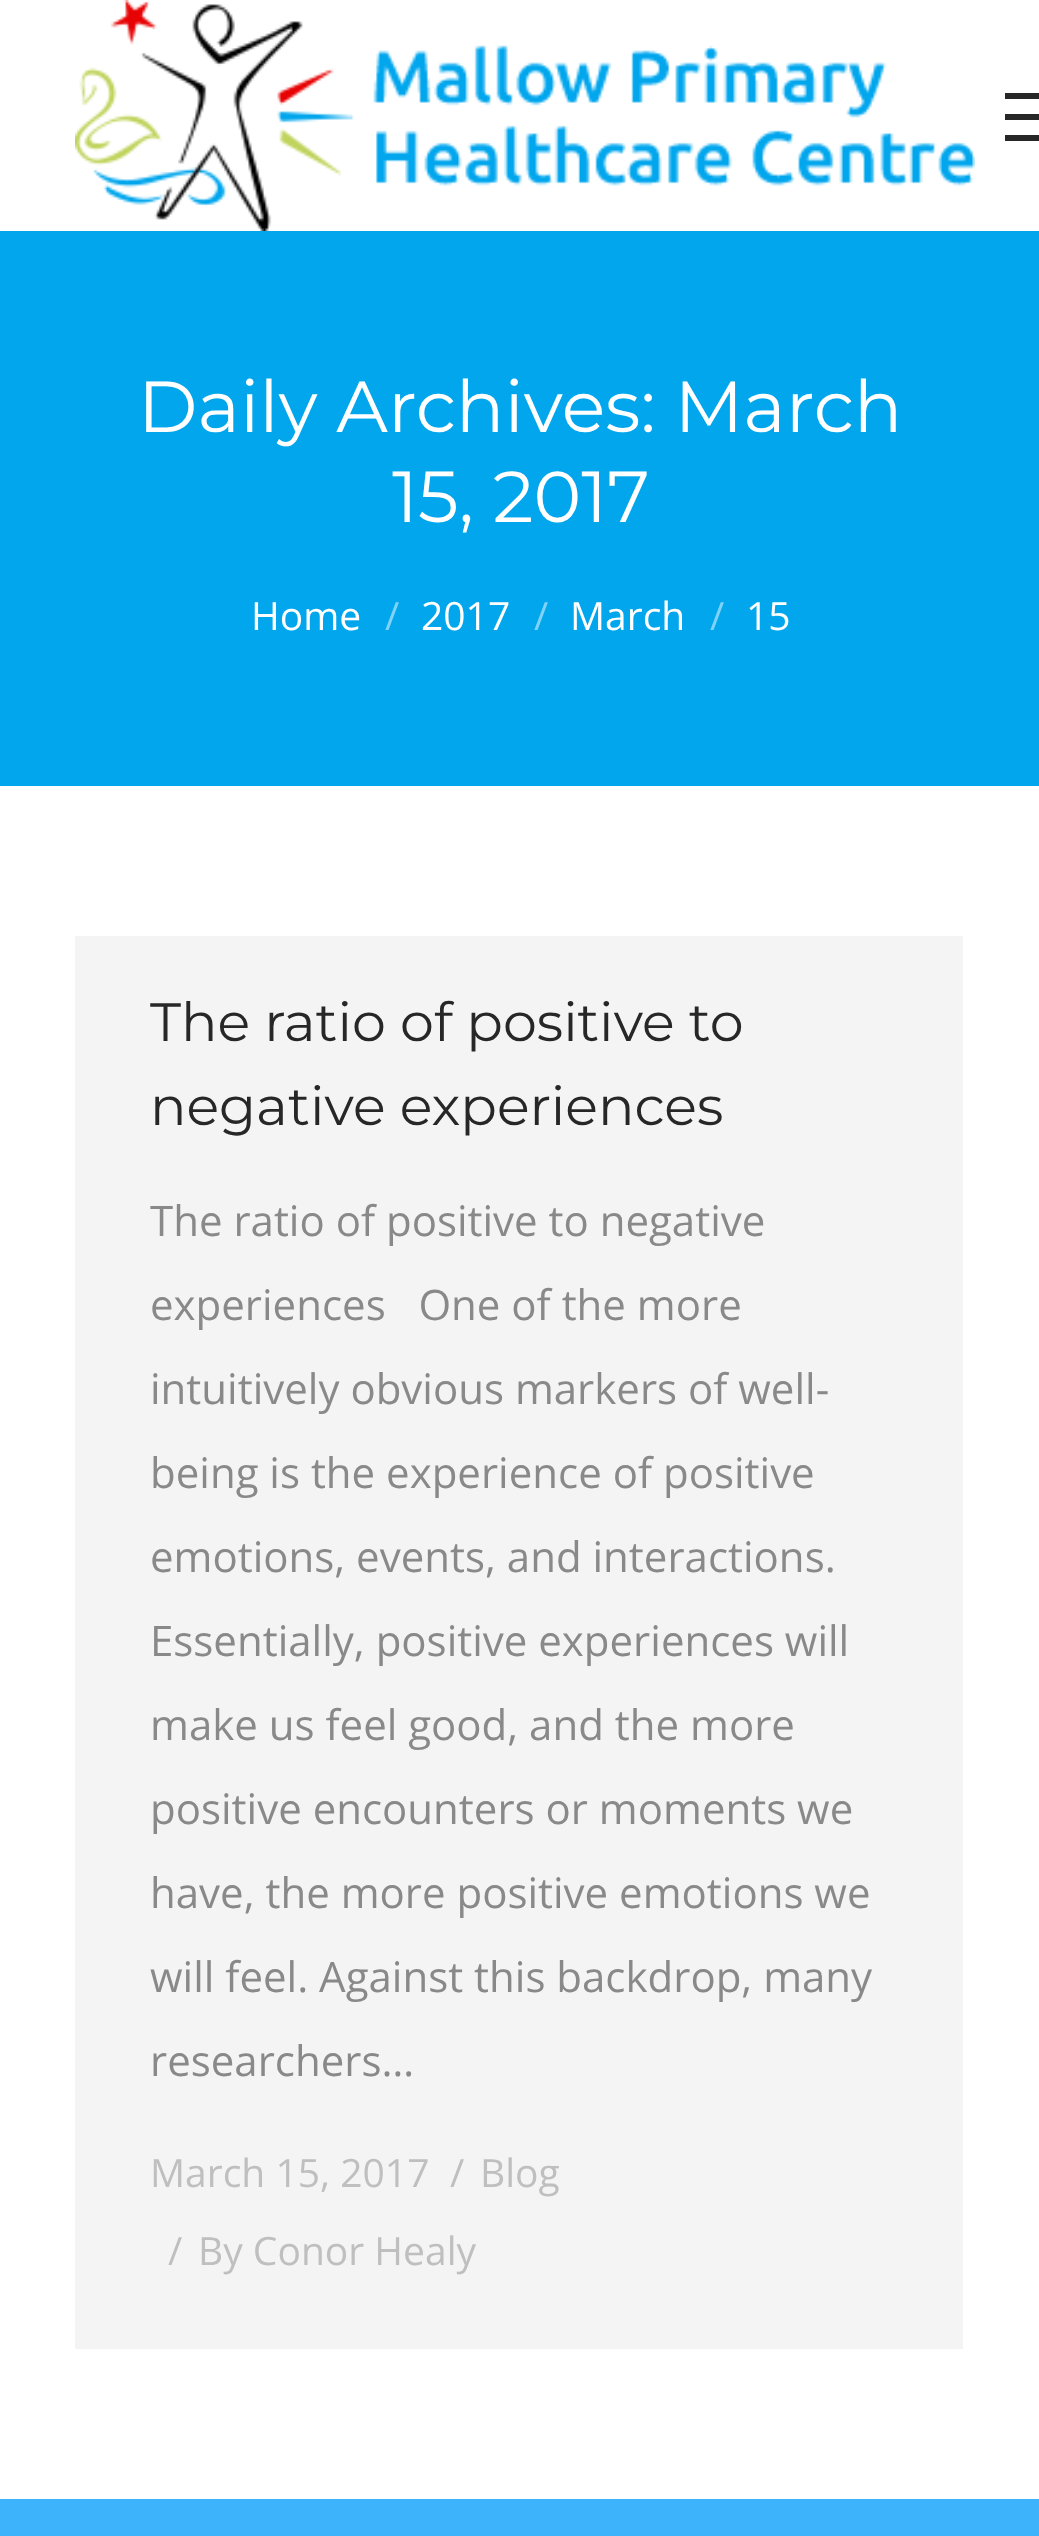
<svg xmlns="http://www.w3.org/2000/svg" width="1039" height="2536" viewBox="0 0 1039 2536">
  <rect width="100%" height="100%" fill="rgb(255,255,255)"/>
  <image x="75" y="0" width="900" height="231" href="pic1.png"/>
  <rect x="1005" y="114" width="34" height="6" fill="rgb(39,39,39)"/>
  <rect x="1005" y="93" width="34" height="6" fill="rgb(39,39,39)"/>
  <rect x="1005" y="135" width="34" height="6" fill="rgb(39,39,39)"/>
  <rect x="0" y="231" width="1039" height="555" fill="rgb(1,166,237)"/>
  <g font-family="Montserrat" font-size="72" fill="rgb(255,255,255)">
    <text x="138" y="432">Daily Archives: March</text>
    <text x="392" y="522">15, 2017</text>
  </g>
  <text x="251" y="630" font-family="Open Sans" font-size="39" fill="rgb(255,255,255)">Home</text>
  <text x="385" y="630" font-family="Open Sans" font-size="39" fill="rgb(128,211,246)">/</text>
  <text x="421" y="630" font-family="Open Sans" font-size="39" fill="rgb(255,255,255)">2017</text>
  <text x="534" y="630" font-family="Open Sans" font-size="39" fill="rgb(128,211,246)">/</text>
  <text x="570" y="630" font-family="Open Sans" font-size="39" fill="rgb(255,255,255)">March</text>
  <text x="710" y="630" font-family="Open Sans" font-size="39" fill="rgb(128,211,246)">/</text>
  <text x="746" y="630" font-family="Open Sans" font-size="39" fill="rgb(255,255,255)">15</text>
  <rect x="75" y="936" width="888" height="1413" fill="rgb(244,244,244)"/>
  <g font-family="Montserrat" font-size="54" fill="rgb(39,39,39)">
    <text>
      <tspan x="150" y="1041">The ratio of positive to</tspan>
      <tspan x="150" y="1125">negative experiences</tspan>
    </text>
  </g>
  <g font-family="Open Sans" font-size="42" fill="rgb(137,137,137)">
    <text x="150" y="1236">The ratio of positive to negative</text>
    <text x="150" y="1320" xml:space="preserve">experiences   One of the more</text>
    <text x="150" y="1404">intuitively obvious markers of well-</text>
    <text x="150" y="1488">being is the experience of positive</text>
    <text x="150" y="1572">emotions, events, and interactions.</text>
    <text x="150" y="1656">Essentially, positive experiences will</text>
    <text x="150" y="1740">make us feel good, and the more</text>
    <text x="150" y="1824">positive encounters or moments we</text>
    <text x="150" y="1908">have, the more positive emotions we</text>
    <text x="150" y="1992">will feel. Against this backdrop, many</text>
    <text x="150" y="2076">researchers…</text>
  </g>
  <g font-family="Open Sans" font-size="39" fill="rgb(191,191,191)">
    <text x="150" y="2187">March 15, 2017</text>
    <text x="450" y="2187">/</text>
    <text x="480" y="2187">Blog</text>
    <text x="168" y="2265">/</text>
    <text x="198" y="2265">By Conor Healy</text>
  </g>
  <rect x="0" y="2499" width="1039" height="37" fill="rgb(61,179,251)"/>
</svg>
